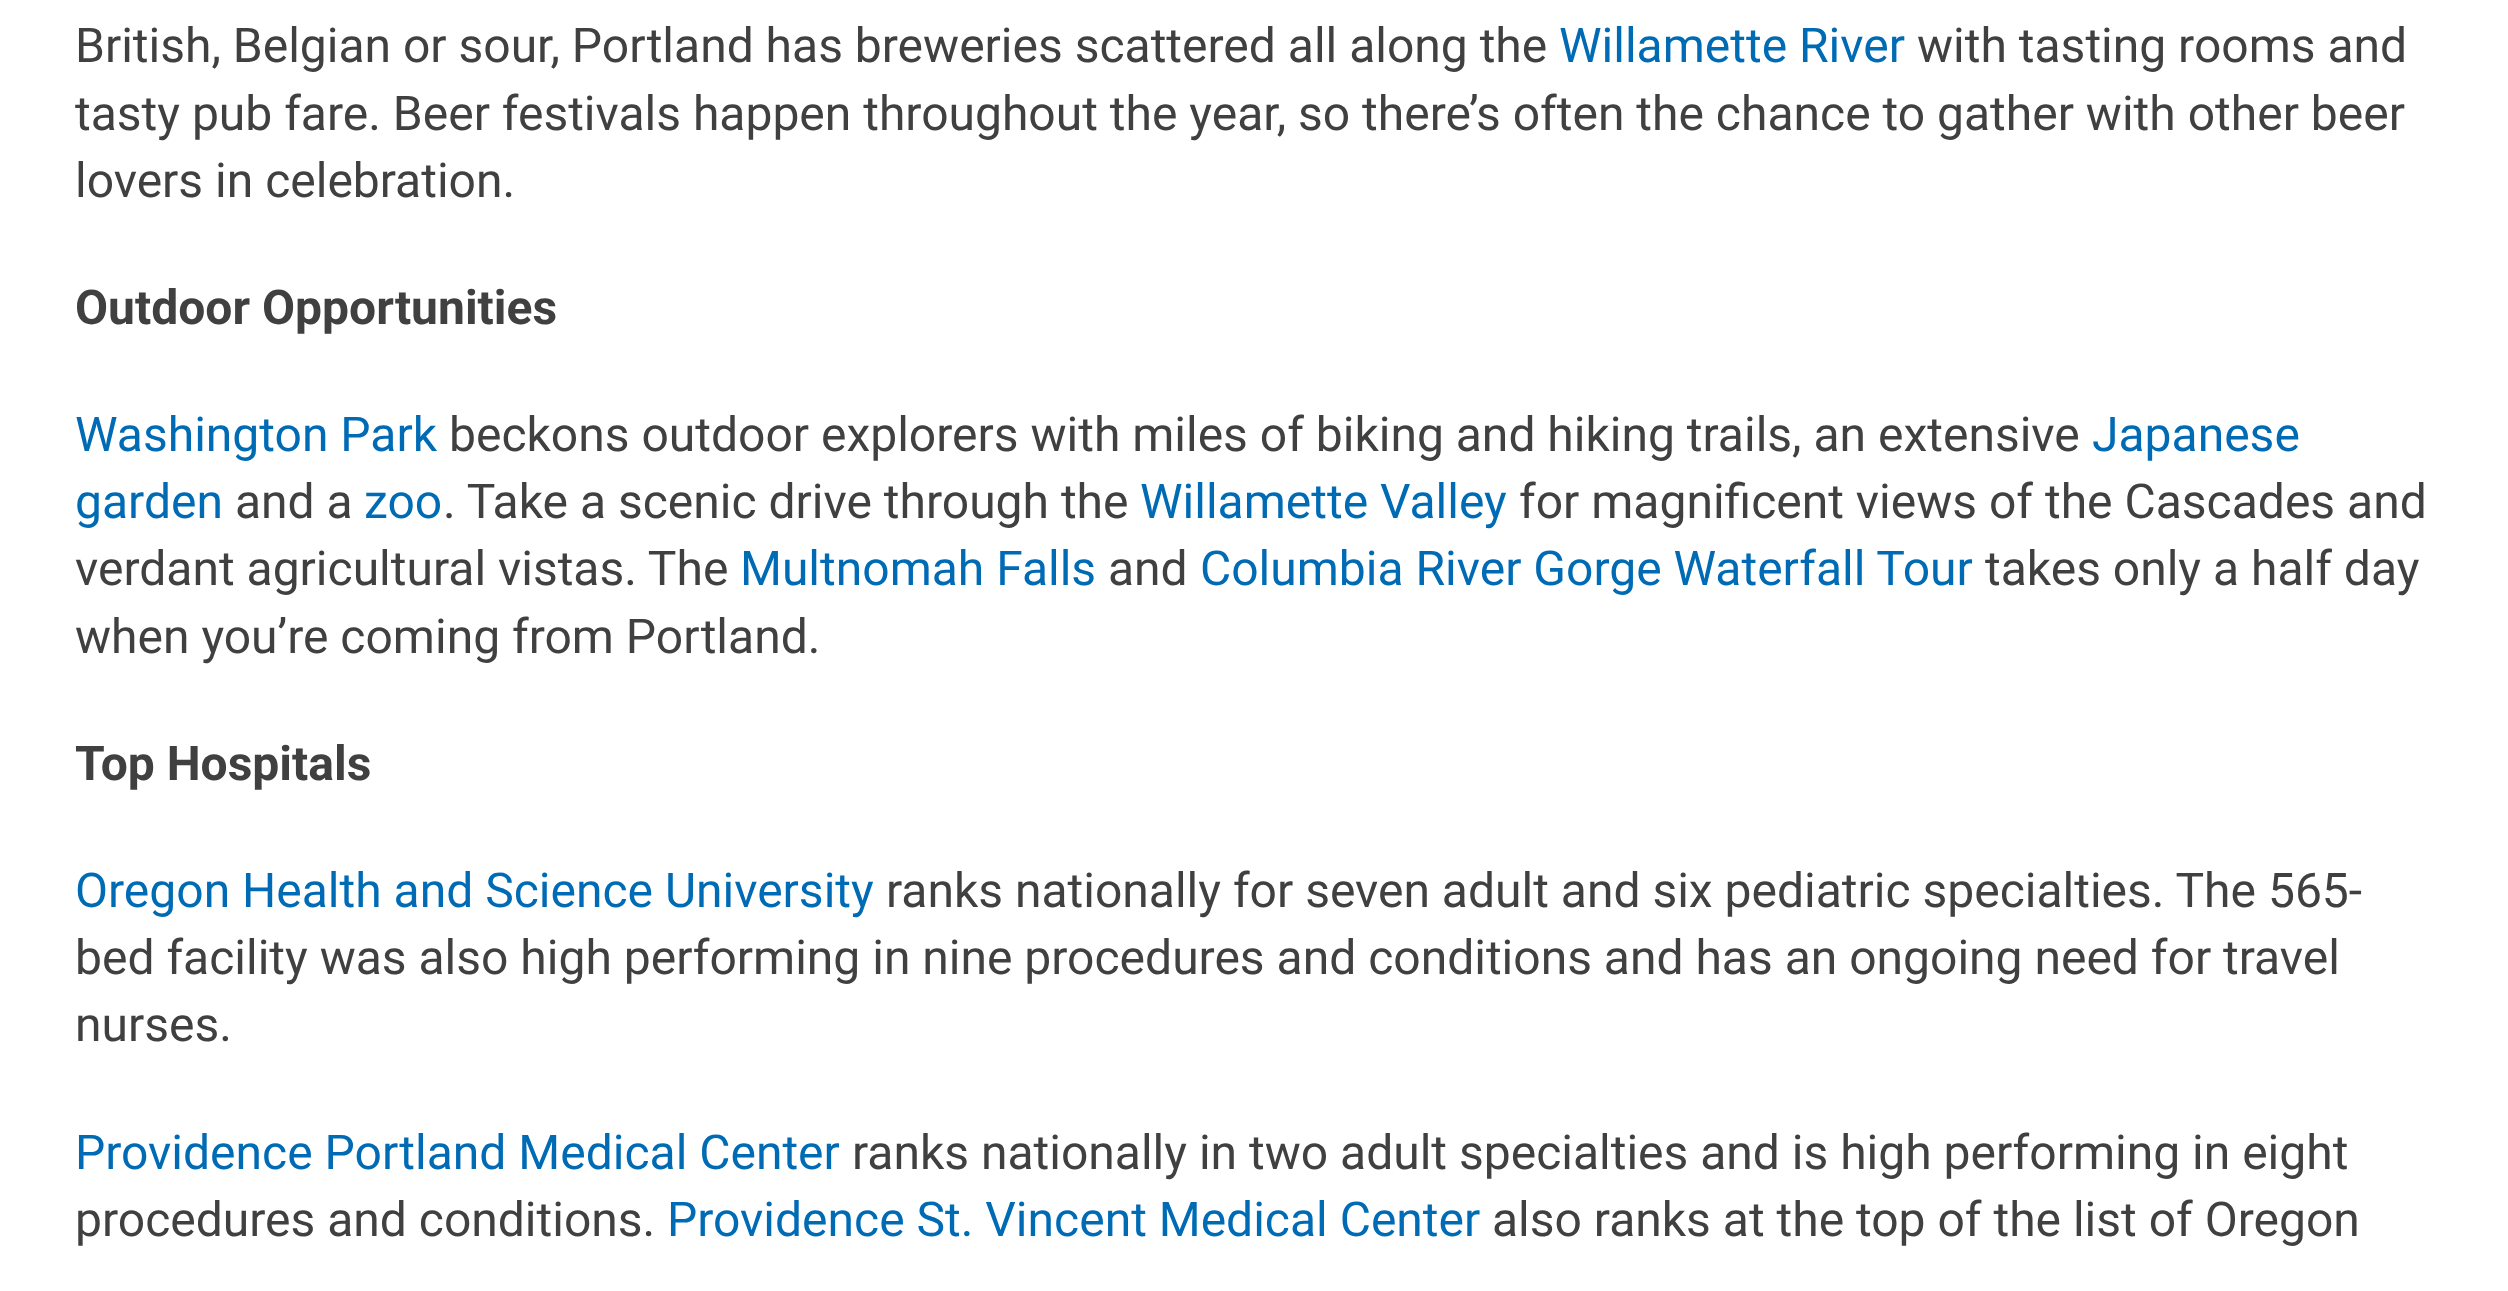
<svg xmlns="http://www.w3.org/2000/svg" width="2508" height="1291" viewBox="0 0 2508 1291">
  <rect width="100%" height="100%" fill="rgb(255,255,255)"/>
  <text x="75" y="62" font-family="Roboto" font-size="48" fill="rgb(64,64,64)">British, Belgian or sour, Portland has breweries scattered all along the</text>
  <text x="1559" y="62" font-family="Roboto" font-size="48" fill="rgb(0,107,181)">Willamette River</text>
  <g font-family="Roboto" font-size="48" fill="rgb(64,64,64)">
    <text x="1917" y="62">with tasting rooms and</text>
    <text>
      <tspan x="75" y="130">tasty pub fare. Beer festivals happen throughout the year, so there’s often the chance to gather with other beer</tspan>
      <tspan x="75" y="197">lovers in celebration.</tspan>
    </text>
  </g>
  <text x="75" y="324" font-family="Roboto" font-size="48" font-weight="bold" fill="rgb(64,64,64)">Outdoor Opportunities</text>
  <text x="75" y="451" font-family="Roboto" font-size="48" fill="rgb(0,107,181)">Washington Park</text>
  <text x="449" y="451" font-family="Roboto" font-size="48" fill="rgb(64,64,64)">beckons outdoor explorers with miles of biking and hiking trails, an extensive</text>
  <g font-family="Roboto" font-size="48" fill="rgb(0,107,181)">
    <text x="2092" y="451">Japanese</text>
    <text x="75" y="518">garden</text>
  </g>
  <text x="235" y="518" font-family="Roboto" font-size="48" fill="rgb(64,64,64)">and a</text>
  <text x="364" y="518" font-family="Roboto" font-size="48" fill="rgb(0,107,181)">zoo</text>
  <text x="443" y="518" font-family="Roboto" font-size="48" fill="rgb(64,64,64)">. Take a scenic drive through the</text>
  <text x="1140" y="518" font-family="Roboto" font-size="48" fill="rgb(0,107,181)">Willamette Valley</text>
  <g font-family="Roboto" font-size="48" fill="rgb(64,64,64)">
    <text x="1519" y="518">for magnificent views of the Cascades and</text>
    <text x="75" y="585">verdant agricultural vistas. The</text>
  </g>
  <text x="740" y="585" font-family="Roboto" font-size="48" fill="rgb(0,107,181)">Multnomah Falls</text>
  <text x="1108" y="585" font-family="Roboto" font-size="48" fill="rgb(64,64,64)">and</text>
  <text x="1200" y="585" font-family="Roboto" font-size="48" fill="rgb(0,107,181)">Columbia River Gorge Waterfall Tour</text>
  <g font-family="Roboto" font-size="48" fill="rgb(64,64,64)">
    <text x="1985" y="585">takes only a half day</text>
    <text x="75" y="653">when you’re coming from Portland.</text>
  </g>
  <text x="75" y="780" font-family="Roboto" font-size="48" font-weight="bold" fill="rgb(64,64,64)">Top Hospitals</text>
  <text x="75" y="907" font-family="Roboto" font-size="48" fill="rgb(0,107,181)">Oregon Health and Science University</text>
  <g font-family="Roboto" font-size="48" fill="rgb(64,64,64)">
    <text x="886" y="907">ranks nationally for seven adult and six pediatric specialties. The 565-</text>
    <text>
      <tspan x="75" y="974">bed facility was also high performing in nine procedures and conditions and has an ongoing need for travel</tspan>
      <tspan x="75" y="1041">nurses.</tspan>
    </text>
  </g>
  <text x="75" y="1169" font-family="Roboto" font-size="48" fill="rgb(0,107,181)">Providence Portland Medical Center</text>
  <g font-family="Roboto" font-size="48" fill="rgb(64,64,64)">
    <text x="852" y="1169">ranks nationally in two adult specialties and is high performing in eight</text>
    <text x="75" y="1236">procedures and conditions.</text>
  </g>
  <text x="667" y="1236" font-family="Roboto" font-size="48" fill="rgb(0,107,181)">Providence St. Vincent Medical Center</text>
  <text x="1492" y="1236" font-family="Roboto" font-size="48" fill="rgb(64,64,64)">also ranks at the top of the list of Oregon</text>
</svg>
